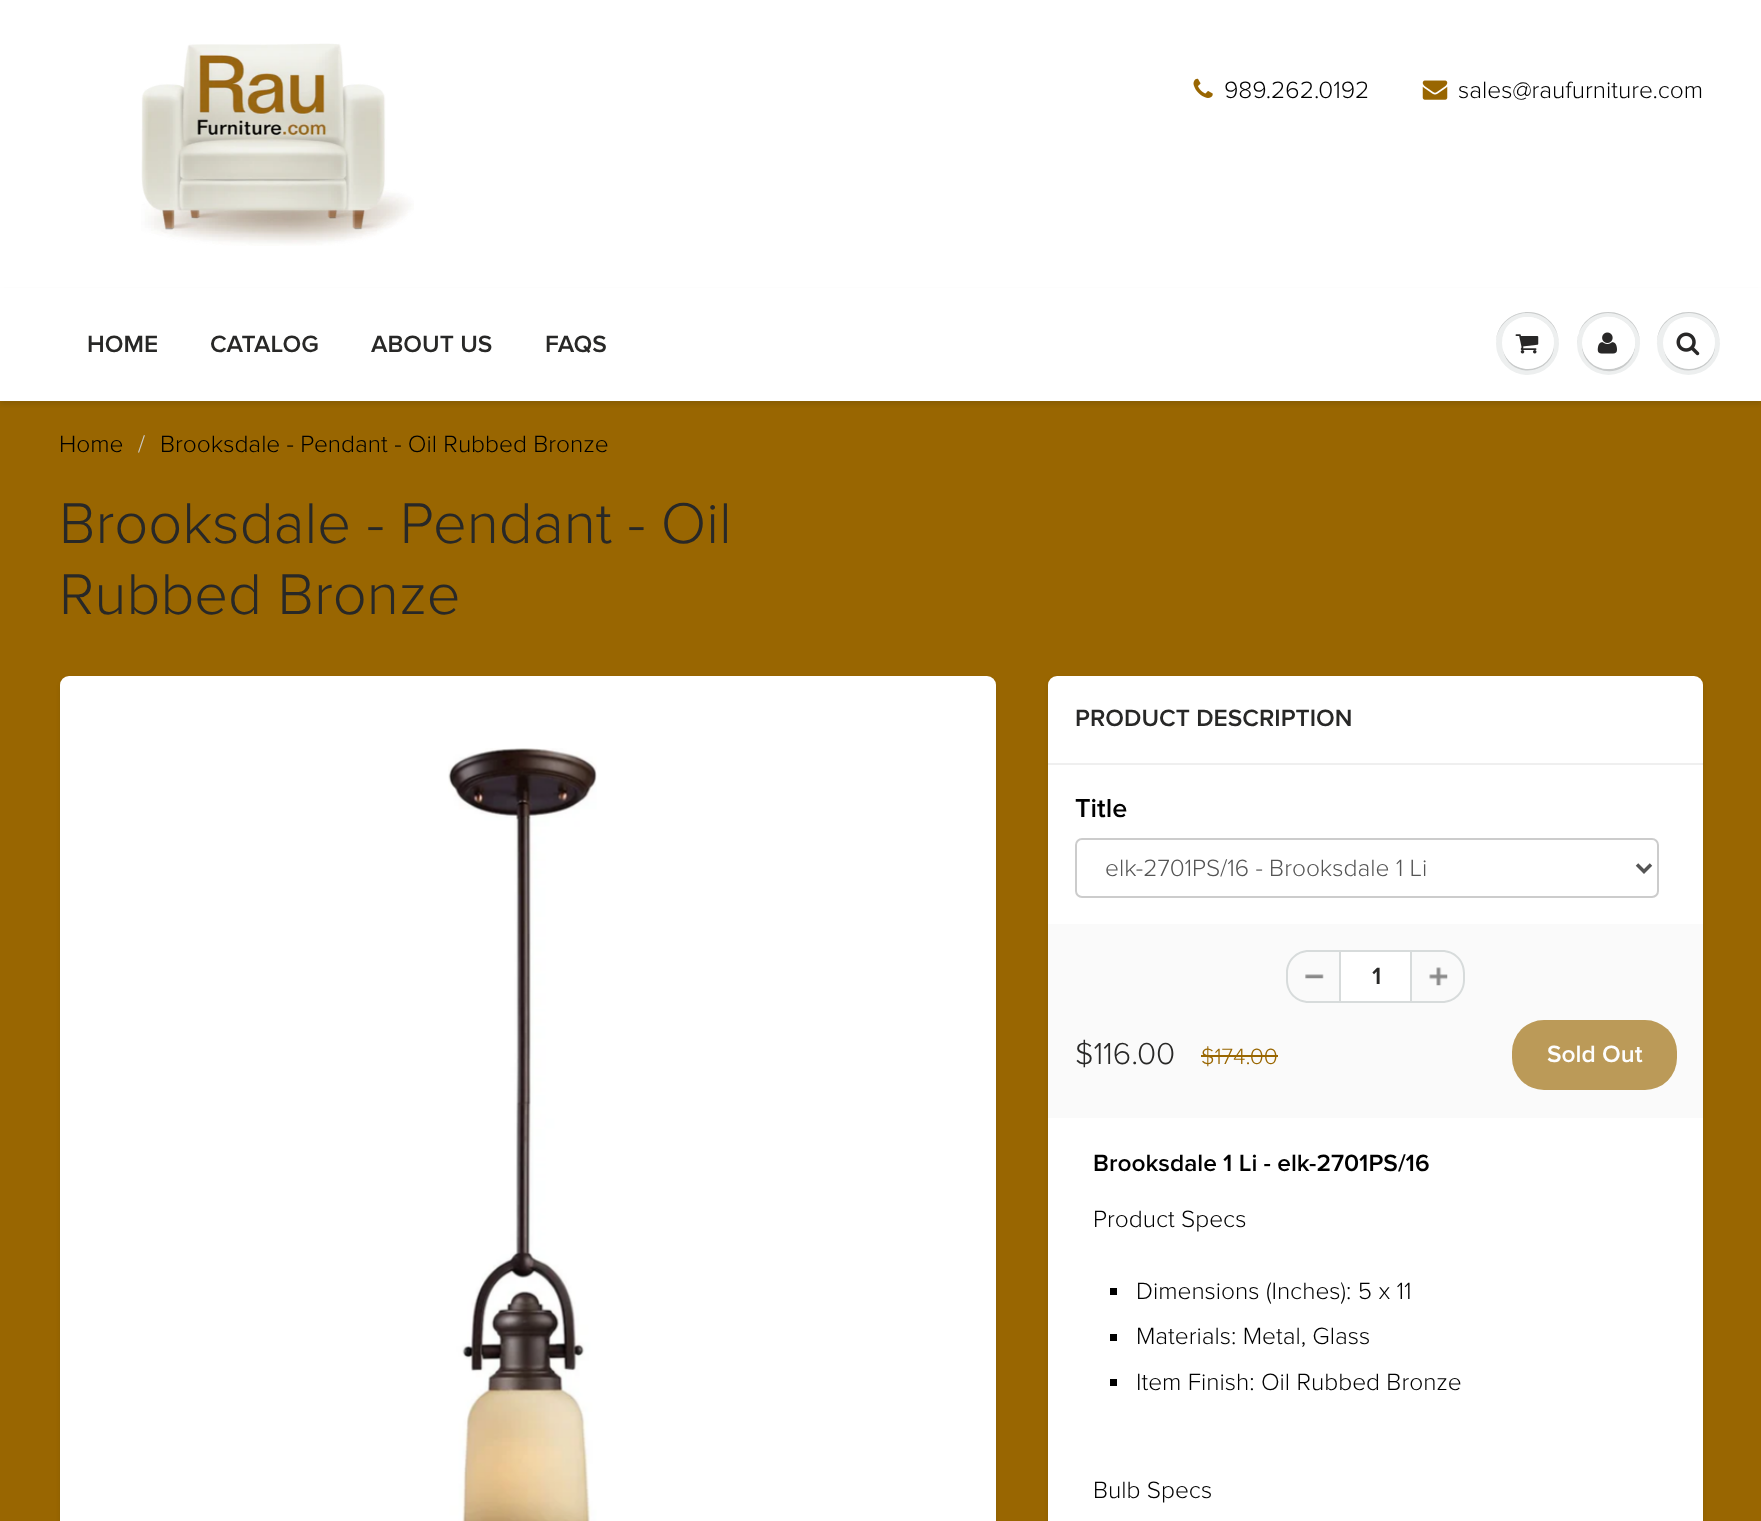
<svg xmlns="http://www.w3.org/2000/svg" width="1761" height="1521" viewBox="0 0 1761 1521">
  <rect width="100%" height="100%" fill="rgb(255,255,255)"/>
  <image x="141" y="43" width="273" height="203" href="pic1.png"/>
  <image x="1193" y="78" width="20" height="20" href="pic2.png"/>
  <text x="1224" y="98" font-family="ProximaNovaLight" font-size="24.5" font-weight="300" fill="rgb(0,0,0)">989.262.0192</text>
  <image x="1422" y="80" width="26" height="20" href="pic3.png"/>
  <text x="1458" y="98" font-family="ProximaNovaLight" font-size="24.5" font-weight="300" fill="rgb(0,0,0)">sales@raufurniture.com</text>
  <rect x="0" y="401" width="1761" height="1120" fill="rgb(153,102,1)"/>
  <rect x="0" y="291" width="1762" height="113" fill="rgba(11,25,28,0.12)" filter="blur(2px)"/>
  <rect x="0" y="288" width="1761" height="113" fill="rgb(255,255,255)"/>
  <g font-family="ProximaNovaLight" font-size="24.5" font-weight="600" fill="rgb(40,40,39)">
    <text x="87" y="352">HOME</text>
    <text x="210" y="352">CATALOG</text>
    <text x="371" y="352">ABOUT US</text>
    <text x="545" y="352">FAQS</text>
  </g>
  <circle cx="1527.5" cy="343.5" r="31.5" fill="rgb(237,239,239)"/>
  <path d="M1528 313C1545 313 1559 327 1559 344C1559 338 1557 331 1554 326C1536 300 1495 313 1496 344C1496 327 1510 313 1528 313ZM1503 350C1509 381 1555 375 1554 344C1553 373 1511 378 1503 350Z" fill="rgb(201,203,203)"/>
  <circle cx="1528" cy="343" r="26" fill="rgb(255,255,255)"/>
  <path d="M1528 318C1542 318 1553 329 1554 344C1555 318 1521 307 1506 328C1503 333 1502 338 1502 344C1503 329 1513 318 1528 318Z" fill="rgb(255,255,255)"/>
  <image x="1515" y="334" width="24" height="20" href="pic4.png"/>
  <circle cx="1608.5" cy="343.5" r="31.5" fill="rgb(237,239,239)"/>
  <path d="M1608 313C1626 313 1640 327 1640 344C1641 313 1600 300 1582 326C1579 331 1577 338 1577 344C1577 327 1591 313 1608 313Z" fill="rgb(201,203,203)"/>
  <path d="M1582 344C1581 373 1622 382 1633 355C1635 350 1636 343 1634 338C1640 365 1603 381 1587 358C1584 354 1582 349 1582 344Z" fill="rgb(201,203,203)"/>
  <rect x="1582" y="317" width="53" height="52" rx="26" fill="rgb(255,255,255)"/>
  <path d="M1608 318C1627 318 1639 339 1632 355C1646 329 1611 303 1590 325C1585 330 1582 337 1582 344C1583 329 1594 318 1608 318Z" fill="rgb(255,255,255)"/>
  <image x="1597" y="332" width="20" height="22" href="pic5.png"/>
  <circle cx="1688.5" cy="343.5" r="31.5" fill="rgb(237,239,239)"/>
  <path d="M1689 313C1706 313 1720 327 1720 344C1720 338 1718 331 1715 326C1697 300 1656 313 1657 344C1657 327 1671 313 1689 313ZM1664 350C1670 381 1716 375 1715 344C1714 373 1672 378 1664 350Z" fill="rgb(201,203,203)"/>
  <circle cx="1689" cy="343" r="26" fill="rgb(255,255,255)"/>
  <path d="M1689 318C1703 318 1714 329 1715 344C1716 317 1679 307 1666 330C1671 323 1679 318 1689 318Z" fill="rgb(255,255,255)"/>
  <image x="1676" y="332" width="24" height="24" href="pic6.png"/>
  <text x="59" y="452" font-family="ProximaNovaLight" font-size="24.5" font-weight="300" fill="rgb(0,0,0)">Home</text>
  <text x="138" y="452" font-family="ProximaNovaLight" font-size="24.5" font-weight="300" fill="rgb(204,204,204)">/</text>
  <text x="160" y="452" font-family="ProximaNovaLight" font-size="24.5" font-weight="300" fill="rgb(0,0,0)">Brooksdale - Pendant - Oil Rubbed Bronze</text>
  <g font-family="ProximaNovaLight" font-size="59.5" font-weight="300" fill="rgb(40,40,39)">
    <text>
      <tspan x="59" y="543">Brooksdale - Pendant - Oil</tspan>
      <tspan x="59" y="614">Rubbed Bronze</tspan>
    </text>
  </g>
  <rect x="60" y="679" width="936" height="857" rx="9" fill="rgba(11,25,28,0.1)" filter="blur(2px)"/>
  <rect x="60" y="676" width="936" height="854" rx="9" fill="rgb(255,255,255)"/>
  <image x="448" y="748" width="149" height="773" href="pic7.png"/>
  <rect x="1048" y="679" width="655" height="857" rx="9" fill="rgba(11,25,28,0.1)" filter="blur(2px)"/>
  <rect x="1048" y="676" width="655" height="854" rx="9" fill="rgb(255,255,255)"/>
  <rect x="1048" y="763" width="655" height="2" fill="rgb(239,239,239)"/>
  <text x="1075" y="726" font-family="ProximaNovaLight" font-size="24.5" font-weight="600" fill="rgb(40,40,39)">PRODUCT DESCRIPTION</text>
  <text x="1075" y="817" font-family="ProximaNovaLight" font-size="27" font-weight="600" fill="rgb(0,0,0)">Title</text>
  <rect x="1076" y="839" width="582" height="58" rx="6" fill="none" stroke="rgb(204,204,204)" stroke-width="2"/>
  <path d="M1637 864.5L1644 871.5L1651 864.5" fill="none" stroke="rgb(85,85,85)" stroke-width="3.5"/>
  <text x="1105" y="876" font-family="ProximaNovaLight" font-size="24.5" font-weight="300" fill="rgb(85,85,85)">elk-2701PS/16 - Brooksdale 1 Li</text>
  <rect x="1048" y="924" width="655" height="194" fill="rgb(250,250,250)"/>
  <image x="1305" y="974" width="19" height="5" href="pic8.png"/>
  <path d="M1309 950H1339V1003H1309C1296 1003 1286 993 1286 980V973C1286 960 1296 950 1309 950ZM1309 952H1339V1001H1309C1297 1001 1288 992 1288 980V973C1288 961 1297 952 1309 952Z" fill="rgb(215,219,219)" fill-rule="evenodd"/>
  <rect x="1340" y="951" width="71" height="51" fill="rgb(255,255,255)" stroke="rgb(215,219,219)" stroke-width="2"/>
  <text x="1372" y="984" font-family="ProximaNovaLight" font-size="24.5" font-weight="600" fill="rgb(40,40,39)">1</text>
  <image x="1429" y="967" width="19" height="19" href="pic9.png"/>
  <path d="M1412 950H1442C1455 950 1465 960 1465 973V980C1465 993 1455 1003 1442 1003H1412ZM1412 952H1442C1454 952 1463 961 1463 973V980C1463 992 1454 1001 1442 1001H1412Z" fill="rgb(215,219,219)" fill-rule="evenodd"/>
  <text x="1075" y="1064" font-family="ProximaNovaLight" font-size="31.5" font-weight="300" fill="rgb(40,40,39)">$116.00</text>
  <text x="1201" y="1064" font-family="ProximaNovaLight" font-size="23" font-weight="300" fill="rgb(153,102,1)">$174.00</text>
  <rect x="1201" y="1055" width="77" height="2" fill="rgb(153,102,1)"/>
  <rect x="1512" y="1020" width="165" height="70" rx="32" fill="rgb(187,154,88)"/>
  <text x="1547" y="1062" font-family="ProximaNovaLight" font-size="24.5" font-weight="600" fill="rgb(253,253,253)">Sold Out</text>
  <text x="1093" y="1171" font-family="ProximaNovaLight" font-size="24.5" font-weight="600" fill="rgb(0,0,0)">Brooksdale 1 Li - elk-2701PS/16</text>
  <text x="1093" y="1227" font-family="ProximaNovaLight" font-size="24.5" font-weight="300" fill="rgb(0,0,0)">Product Specs</text>
  <rect x="1110" y="1288" width="7" height="7" fill="rgb(0,0,0)"/>
  <text x="1136" y="1299" font-family="ProximaNovaLight" font-size="24.5" font-weight="300" fill="rgb(0,0,0)">Dimensions (Inches): 5 x 11</text>
  <rect x="1110" y="1334" width="7" height="7" fill="rgb(0,0,0)"/>
  <text x="1136" y="1344" font-family="ProximaNovaLight" font-size="24.5" font-weight="300" fill="rgb(0,0,0)">Materials: Metal, Glass</text>
  <rect x="1110" y="1379" width="7" height="7" fill="rgb(0,0,0)"/>
  <g font-family="ProximaNovaLight" font-size="24.5" font-weight="300" fill="rgb(0,0,0)">
    <text x="1136" y="1390">Item Finish: Oil Rubbed Bronze</text>
    <text x="1093" y="1498">Bulb Specs</text>
  </g>
</svg>
